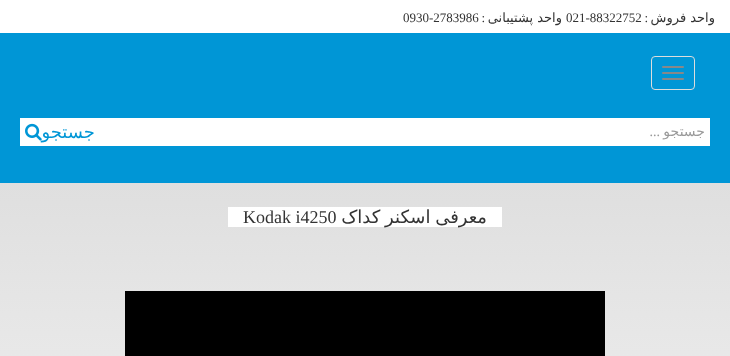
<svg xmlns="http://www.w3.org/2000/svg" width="730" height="356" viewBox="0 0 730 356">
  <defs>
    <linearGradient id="g1" gradientUnits="userSpaceOnUse" x1="365" y1="183" x2="365" y2="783"><stop offset="0" stop-color="rgb(223,223,223)"/><stop offset="1" stop-color="rgb(255,255,255)"/></linearGradient>
  </defs>
  <rect width="100%" height="100%" fill="rgb(255,255,255)"/>
  <text x="715" y="22" font-family="DejaVu Sans" font-size="13" direction="rtl" fill="rgb(51,51,51)">واحد فروش</text>
  <text x="648" y="22" font-family="Liberation Serif" font-size="13" direction="rtl" fill="rgb(51,51,51)">:</text>
  <text x="566" y="22" font-family="Liberation Serif" font-size="13" fill="rgb(51,51,51)">021-88322752</text>
  <text x="562" y="22" font-family="DejaVu Sans" font-size="13" direction="rtl" fill="rgb(51,51,51)">واحد پشتیبانی</text>
  <text x="485" y="22" font-family="Liberation Serif" font-size="13" direction="rtl" fill="rgb(51,51,51)">:</text>
  <text x="403" y="22" font-family="Liberation Serif" font-size="13" fill="rgb(51,51,51)">0930-2783986</text>
  <rect x="0" y="33" width="730" height="150" fill="rgb(0,150,214)"/>
  <rect x="651.5" y="56.5" width="43" height="33" rx="3.5" fill="none" stroke="rgb(221,221,221)"/>
  <rect x="662" y="66" width="22" height="2" rx="1" fill="rgb(136,136,136)"/>
  <rect x="662" y="72" width="22" height="2" rx="1" fill="rgb(136,136,136)"/>
  <rect x="662" y="78" width="22" height="2" rx="1" fill="rgb(136,136,136)"/>
  <rect x="20" y="118" width="690" height="28" fill="rgb(255,255,255)"/>
  <text x="705" y="136" font-family="DejaVu Sans" font-size="14" direction="rtl" fill="rgb(153,153,153)">جستجو</text>
  <text x="660" y="136" font-family="Liberation Serif" font-size="14" direction="rtl" fill="rgb(153,153,153)">...</text>
  <image x="25" y="123" width="17" height="18" href="pic1.png"/>
  <text x="95" y="138" font-family="DejaVu Sans" font-size="18" direction="rtl" fill="rgb(0,150,214)">جستجو</text>
  <rect x="0" y="183" width="730" height="173" fill="url(#g1)"/>
  <rect x="228" y="207" width="274" height="20" fill="rgb(255,255,255)"/>
  <text x="487" y="223" word-spacing="-1" font-family="DejaVu Sans" font-size="18" direction="rtl" fill="rgb(51,51,51)">معرفی اسکنر کداک</text>
  <text x="243" y="223" font-family="Liberation Serif" font-size="18" fill="rgb(51,51,51)">Kodak i4250</text>
  <rect x="125" y="291" width="480" height="65" fill="rgb(0,0,0)"/>
</svg>
